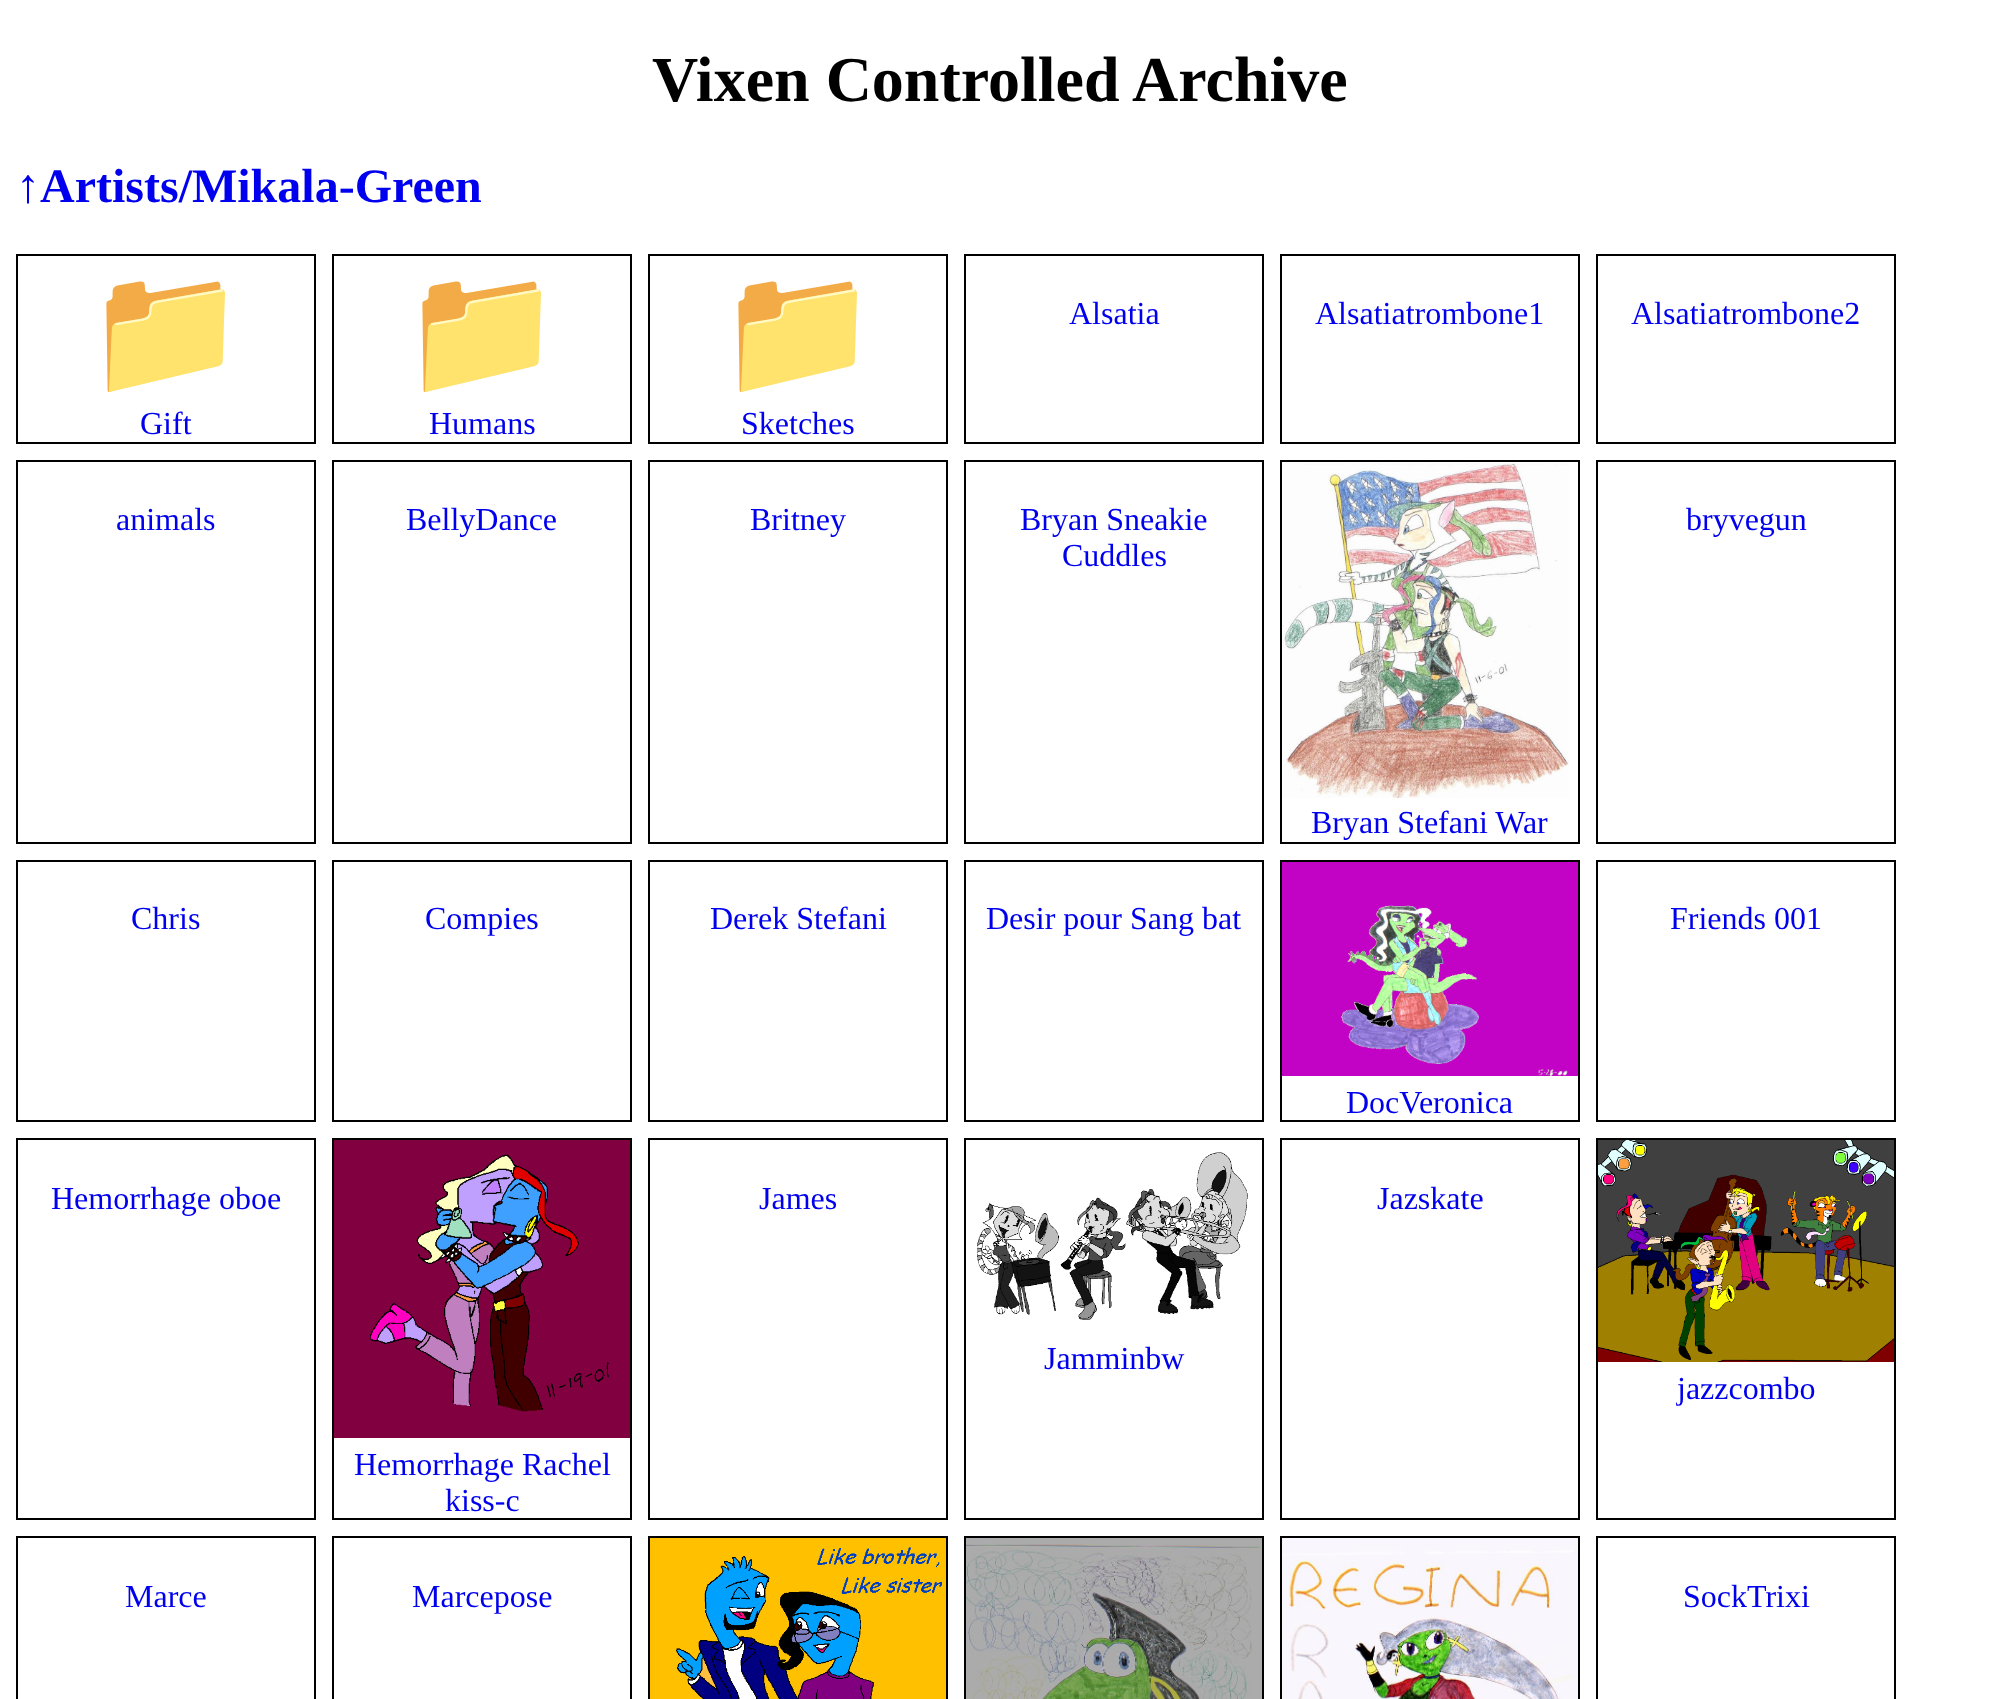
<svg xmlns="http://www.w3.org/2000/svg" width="1999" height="1699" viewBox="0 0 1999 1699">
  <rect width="100%" height="100%" fill="rgb(255,255,255)"/>
  <text x="652" y="101" font-family="Liberation Serif" font-size="64" font-weight="bold" fill="rgb(0,0,0)">Vixen Controlled Archive</text>
  <text x="16" y="202" font-family="Liberation Serif" font-size="48" font-weight="bold" fill="rgb(0,0,238)">↑Artists/Mikala-Green</text>
  <rect x="17" y="255" width="298" height="188" fill="none" stroke="rgb(0,0,0)" stroke-width="2"/>
  <text x="86" y="374" font-family="Noto Color Emoji" font-size="128" fill="rgb(0,0,238)">📁</text>
  <text x="140" y="434" font-family="Liberation Serif" font-size="32" fill="rgb(0,0,238)">Gift</text>
  <rect x="333" y="255" width="298" height="188" fill="none" stroke="rgb(0,0,0)" stroke-width="2"/>
  <text x="402" y="374" font-family="Noto Color Emoji" font-size="128" fill="rgb(0,0,238)">📁</text>
  <text x="429" y="434" font-family="Liberation Serif" font-size="32" fill="rgb(0,0,238)">Humans</text>
  <rect x="649" y="255" width="298" height="188" fill="none" stroke="rgb(0,0,0)" stroke-width="2"/>
  <text x="718" y="374" font-family="Noto Color Emoji" font-size="128" fill="rgb(0,0,238)">📁</text>
  <text x="741" y="434" font-family="Liberation Serif" font-size="32" fill="rgb(0,0,238)">Sketches</text>
  <rect x="965" y="255" width="298" height="188" fill="none" stroke="rgb(0,0,0)" stroke-width="2"/>
  <text x="1069" y="324" font-family="Liberation Serif" font-size="32" fill="rgb(0,0,238)">Alsatia</text>
  <rect x="1281" y="255" width="298" height="188" fill="none" stroke="rgb(0,0,0)" stroke-width="2"/>
  <text x="1315" y="324" font-family="Liberation Serif" font-size="32" fill="rgb(0,0,238)">Alsatiatrombone1</text>
  <rect x="1597" y="255" width="298" height="188" fill="none" stroke="rgb(0,0,0)" stroke-width="2"/>
  <text x="1631" y="324" font-family="Liberation Serif" font-size="32" fill="rgb(0,0,238)">Alsatiatrombone2</text>
  <rect x="17" y="461" width="298" height="382" fill="none" stroke="rgb(0,0,0)" stroke-width="2"/>
  <text x="116" y="530" font-family="Liberation Serif" font-size="32" fill="rgb(0,0,238)">animals</text>
  <rect x="333" y="461" width="298" height="382" fill="none" stroke="rgb(0,0,0)" stroke-width="2"/>
  <text x="406" y="530" font-family="Liberation Serif" font-size="32" fill="rgb(0,0,238)">BellyDance</text>
  <rect x="649" y="461" width="298" height="382" fill="none" stroke="rgb(0,0,0)" stroke-width="2"/>
  <text x="750" y="530" font-family="Liberation Serif" font-size="32" fill="rgb(0,0,238)">Britney</text>
  <rect x="965" y="461" width="298" height="382" fill="none" stroke="rgb(0,0,0)" stroke-width="2"/>
  <g font-family="Liberation Serif" font-size="32" fill="rgb(0,0,238)">
    <text x="1020" y="530">Bryan Sneakie</text>
    <text x="1062" y="566">Cuddles</text>
  </g>
  <rect x="1597" y="461" width="298" height="382" fill="none" stroke="rgb(0,0,0)" stroke-width="2"/>
  <text x="1686" y="530" font-family="Liberation Serif" font-size="32" fill="rgb(0,0,238)">bryvegun</text>
  <rect x="1281" y="461" width="298" height="382" fill="none" stroke="rgb(0,0,0)" stroke-width="2"/>
  <image x="1282" y="462" width="287" height="336" href="pic1.png"/>
  <text x="1311" y="833" font-family="Liberation Serif" font-size="32" fill="rgb(0,0,238)">Bryan Stefani War</text>
  <rect x="17" y="861" width="298" height="260" fill="none" stroke="rgb(0,0,0)" stroke-width="2"/>
  <text x="131" y="929" font-family="Liberation Serif" font-size="32" fill="rgb(0,0,238)">Chris</text>
  <rect x="333" y="861" width="298" height="260" fill="none" stroke="rgb(0,0,0)" stroke-width="2"/>
  <text x="425" y="929" font-family="Liberation Serif" font-size="32" fill="rgb(0,0,238)">Compies</text>
  <rect x="649" y="861" width="298" height="260" fill="none" stroke="rgb(0,0,0)" stroke-width="2"/>
  <text x="710" y="929" font-family="Liberation Serif" font-size="32" fill="rgb(0,0,238)">Derek Stefani</text>
  <rect x="965" y="861" width="298" height="260" fill="none" stroke="rgb(0,0,0)" stroke-width="2"/>
  <text x="986" y="929" font-family="Liberation Serif" font-size="32" fill="rgb(0,0,238)">Desir pour Sang bat</text>
  <rect x="1597" y="861" width="298" height="260" fill="none" stroke="rgb(0,0,0)" stroke-width="2"/>
  <text x="1670" y="929" font-family="Liberation Serif" font-size="32" fill="rgb(0,0,238)">Friends 001</text>
  <rect x="1281" y="861" width="298" height="260" fill="none" stroke="rgb(0,0,0)" stroke-width="2"/>
  <image x="1282" y="862" width="296" height="214" href="pic2.png"/>
  <text x="1346" y="1113" font-family="Liberation Serif" font-size="32" fill="rgb(0,0,238)">DocVeronica</text>
  <rect x="17" y="1139" width="298" height="380" fill="none" stroke="rgb(0,0,0)" stroke-width="2"/>
  <text x="51" y="1209" font-family="Liberation Serif" font-size="32" fill="rgb(0,0,238)">Hemorrhage oboe</text>
  <rect x="649" y="1139" width="298" height="380" fill="none" stroke="rgb(0,0,0)" stroke-width="2"/>
  <text x="759" y="1209" font-family="Liberation Serif" font-size="32" fill="rgb(0,0,238)">James</text>
  <rect x="1281" y="1139" width="298" height="380" fill="none" stroke="rgb(0,0,0)" stroke-width="2"/>
  <text x="1377" y="1209" font-family="Liberation Serif" font-size="32" fill="rgb(0,0,238)">Jazskate</text>
  <rect x="965" y="1139" width="298" height="380" fill="none" stroke="rgb(0,0,0)" stroke-width="2"/>
  <image x="977" y="1152" width="271" height="168" href="pic3.png"/>
  <text x="1044" y="1369" font-family="Liberation Serif" font-size="32" fill="rgb(0,0,238)">Jamminbw</text>
  <rect x="1597" y="1139" width="298" height="380" fill="none" stroke="rgb(0,0,0)" stroke-width="2"/>
  <image x="1598" y="1140" width="296" height="222" href="pic4.png"/>
  <text x="1677" y="1399" font-family="Liberation Serif" font-size="32" fill="rgb(0,0,238)">jazzcombo</text>
  <rect x="333" y="1139" width="298" height="380" fill="none" stroke="rgb(0,0,0)" stroke-width="2"/>
  <image x="334" y="1140" width="296" height="298" href="pic5.png"/>
  <g font-family="Liberation Serif" font-size="32" fill="rgb(0,0,238)">
    <text x="354" y="1475">Hemorrhage Rachel</text>
    <text x="445" y="1511">kiss-c</text>
  </g>
  <rect x="17" y="1537" width="298" height="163" fill="none" stroke="rgb(0,0,0)" stroke-width="2"/>
  <text x="125" y="1607" font-family="Liberation Serif" font-size="32" fill="rgb(0,0,238)">Marce</text>
  <rect x="333" y="1537" width="298" height="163" fill="none" stroke="rgb(0,0,0)" stroke-width="2"/>
  <text x="412" y="1607" font-family="Liberation Serif" font-size="32" fill="rgb(0,0,238)">Marcepose</text>
  <rect x="649" y="1537" width="298" height="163" fill="none" stroke="rgb(0,0,0)" stroke-width="2"/>
  <image x="650" y="1538" width="296" height="161" href="pic6.png"/>
  <rect x="965" y="1537" width="298" height="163" fill="none" stroke="rgb(0,0,0)" stroke-width="2"/>
  <image x="966" y="1538" width="296" height="161" href="pic7.png"/>
  <rect x="1281" y="1537" width="298" height="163" fill="none" stroke="rgb(0,0,0)" stroke-width="2"/>
  <image x="1282" y="1538" width="296" height="161" href="pic8.png"/>
  <rect x="1597" y="1537" width="298" height="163" fill="none" stroke="rgb(0,0,0)" stroke-width="2"/>
  <text x="1683" y="1607" font-family="Liberation Serif" font-size="32" fill="rgb(0,0,238)">SockTrixi</text>
</svg>
